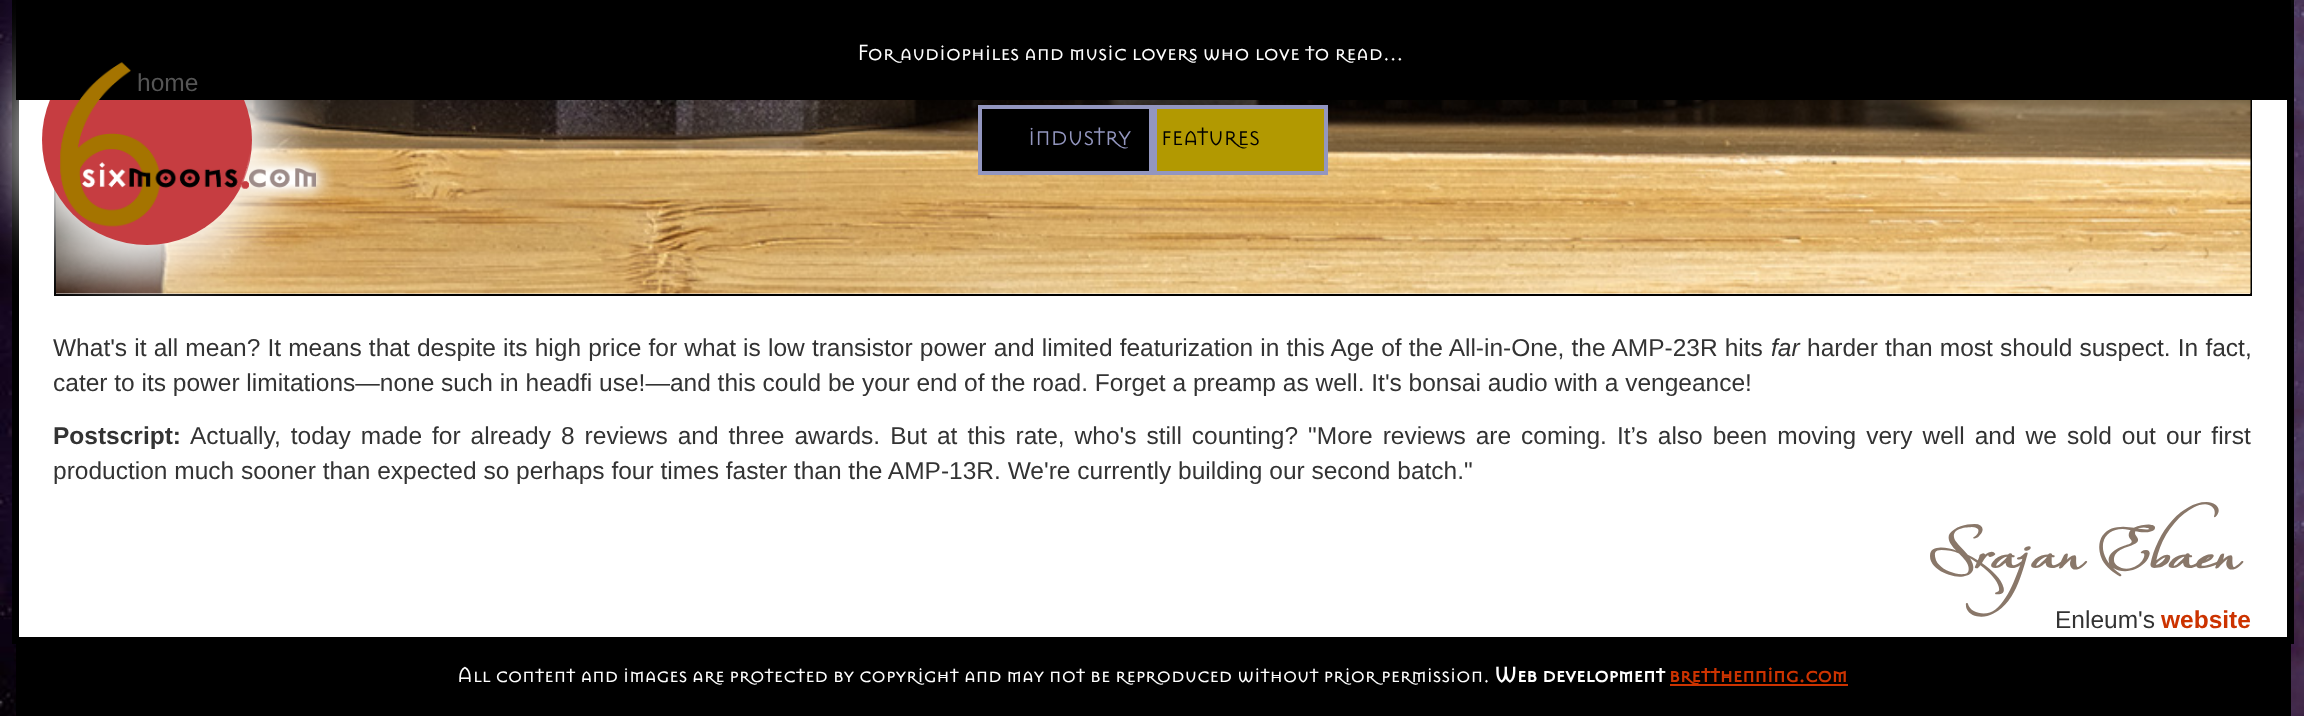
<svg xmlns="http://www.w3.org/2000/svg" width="2304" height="716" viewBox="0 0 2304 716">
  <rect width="100%" height="100%" fill="rgb(255,255,255)"/>
  <image x="0" y="0" width="2304" height="716" href="pic1.png"/>
  <rect x="19" y="100" width="2268" height="537" fill="rgb(255,255,255)"/>
  <rect x="15.5" y="-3.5" width="2275" height="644" fill="none" stroke="rgb(0,0,0)" stroke-width="7"/>
  <rect x="55" y="-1" width="2196" height="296" fill="none" stroke="rgb(0,0,0)" stroke-width="2"/>
  <image x="56" y="100" width="2195" height="194" href="pic3.png"/>
  <rect x="19" y="12" width="256" height="256" rx="128" fill="rgb(255,255,255)" filter="blur(29px)"/>
  <circle cx="147" cy="140" r="105" fill="rgb(198,61,65)"/>
  <rect x="446" y="-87" width="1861" height="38" fill="rgb(255,255,255)" filter="blur(29px)"/>
  <rect x="16" y="0" width="2275" height="100" fill="rgb(0,0,0)"/>
  <text x="857" y="60" font-family="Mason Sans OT" font-size="24.5" fill="rgb(255,255,255)">For audiophiles and music lovers who love to read...</text>
  <image x="60" y="62" width="274" height="165" href="pic2.png"/>
  <text x="137" y="91" font-family="Liberation Sans" font-size="24.5" fill="rgb(85,85,85)">home</text>
  <rect x="980" y="107" width="171" height="66" fill="rgb(0,0,0)" stroke="rgb(147,150,191)" stroke-width="4"/>
  <text x="1028" y="145" font-family="Mason Sans OT" font-size="22" fill="rgb(147,150,191)">INDUSTRY</text>
  <rect x="1155" y="107" width="171" height="66" fill="rgb(178,153,1)" stroke="rgb(147,150,191)" stroke-width="4"/>
  <text x="1161" y="145" font-family="Mason Sans OT" font-size="22" fill="rgb(0,0,0)">FEATURES</text>
  <text x="53" y="356" word-spacing="0.35" font-family="Liberation Sans" font-size="24.5" fill="rgb(51,51,51)">What's it all mean? It means that despite its high price for what is low transistor power and limited featurization in this Age of the All-in-One, the AMP-23R hits</text>
  <text x="1771" y="356" font-family="Liberation Sans" font-size="24.5" font-style="italic" fill="rgb(51,51,51)">far</text>
  <g font-family="Liberation Sans" font-size="24.5" fill="rgb(51,51,51)">
    <text x="1807" y="356" word-spacing="0.35">harder than most should suspect. In fact,</text>
    <text x="53" y="391">cater to its power limitations—none such in headfi use!—and this could be your end of the road. Forget a preamp as well. It's bonsai audio with a vengeance!</text>
  </g>
  <text x="53" y="444" font-family="Liberation Sans" font-size="24.5" font-weight="bold" fill="rgb(51,51,51)">Postscript:</text>
  <g font-family="Liberation Sans" font-size="24.5" fill="rgb(51,51,51)">
    <text x="190" y="444" word-spacing="3.2">Actually, today made for already 8 reviews and three awards. But at this rate, who's still counting? "More reviews are coming. It’s also been moving very well and we sold out our first</text>
    <text x="53" y="479">production much sooner than expected so perhaps four times faster than the AMP-13R. We're currently building our second batch."</text>
  </g>
  <text x="1928" y="568" font-family="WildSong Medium" font-size="52.5" font-weight="bold" fill="rgb(137,119,105)">Srajan Ebaen</text>
  <text x="2055" y="628" font-family="Liberation Sans" font-size="24.5" fill="rgb(51,51,51)">Enleum's</text>
  <text x="2161" y="628" font-family="Liberation Sans" font-size="24.5" font-weight="bold" fill="rgb(204,51,0)">website</text>
  <rect x="16" y="644" width="2275" height="72" fill="rgb(0,0,0)"/>
  <text x="457" y="682" font-family="Mason Sans OT" font-size="23.35" fill="rgb(255,255,255)">All content and images are protected by copyright and may not be reproduced without prior permission.</text>
  <text x="1494" y="682" font-family="Mason Sans OT" font-size="23.35" font-weight="bold" fill="rgb(255,255,255)">Web development</text>
  <rect x="1670" y="684" width="178" height="2" fill="rgb(204,51,0)"/>
  <text x="1669" y="682" font-family="Mason Sans OT" font-size="23.35" font-weight="bold" fill="rgb(204,51,0)">bretthenning.com</text>
</svg>
